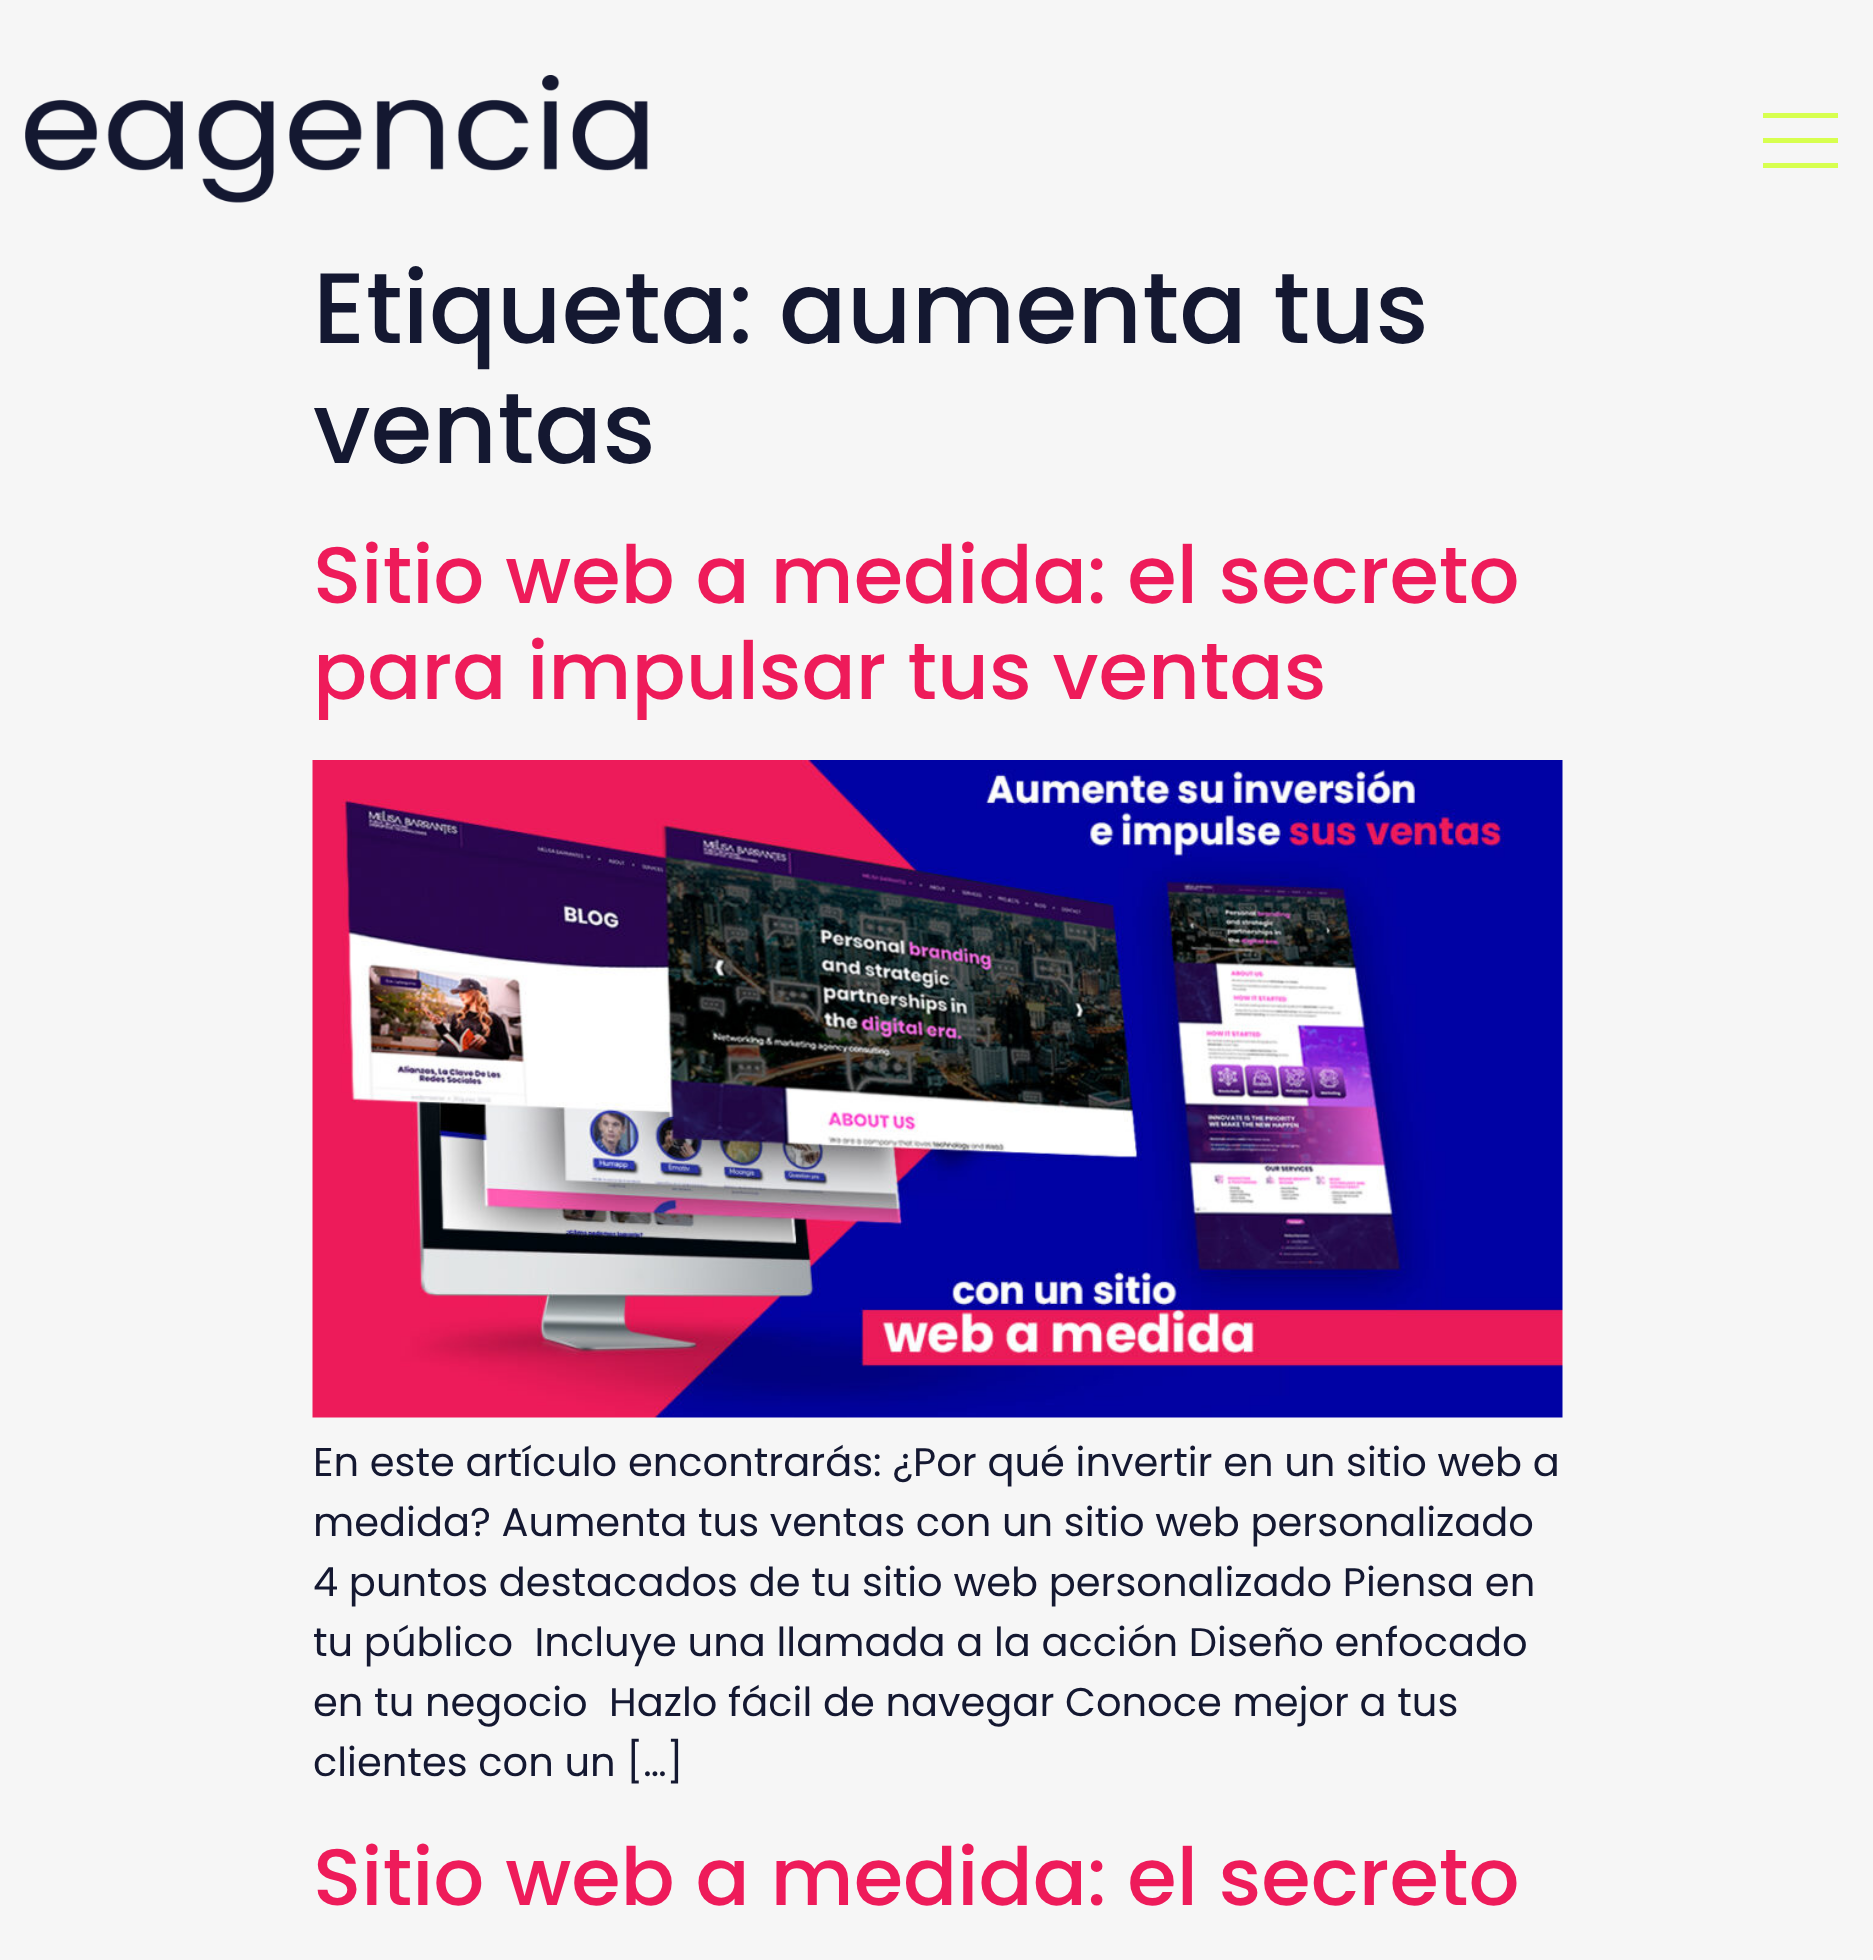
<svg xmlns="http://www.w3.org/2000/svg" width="1873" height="1960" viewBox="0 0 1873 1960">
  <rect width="100%" height="100%" fill="rgb(246,246,246)"/>
  <image x="25" y="75" width="623" height="128" href="pic1.png"/>
  <rect x="1763" y="138" width="75" height="5" fill="rgb(215,255,79)"/>
  <rect x="1763" y="113" width="75" height="5" fill="rgb(215,255,79)"/>
  <rect x="1763" y="163" width="75" height="5" fill="rgb(215,255,79)"/>
  <g font-family="Poppins" font-size="100" font-weight="500" fill="rgb(20,24,49)">
    <text>
      <tspan x="313" y="343">Etiqueta: aumenta tus</tspan>
      <tspan x="313" y="463">ventas</tspan>
    </text>
  </g>
  <g font-family="Poppins" font-size="80" font-weight="500" fill="rgb(238,27,90)">
    <text>
      <tspan x="313" y="603">Sitio web a medida: el secreto</tspan>
      <tspan x="313" y="699">para impulsar tus ventas</tspan>
    </text>
  </g>
  <image x="312" y="760" width="1251" height="658" href="pic2.png"/>
  <g font-family="Poppins" font-size="40" fill="rgb(20,24,49)">
    <text xml:space="preserve"><tspan x="313" y="1476">En este artículo encontrarás: ¿Por qué invertir en un sitio web a</tspan><tspan x="313" y="1536">medida? Aumenta tus ventas con un sitio web personalizado</tspan><tspan x="313" y="1596">4 puntos destacados de tu sitio web personalizado Piensa en</tspan><tspan x="313" y="1656">tu público  Incluye una llamada a la acción Diseño enfocado</tspan><tspan x="313" y="1716">en tu negocio  Hazlo fácil de navegar Conoce mejor a tus</tspan><tspan x="313" y="1776">clientes con un […]</tspan></text>
  </g>
  <text x="313" y="1905" font-family="Poppins" font-size="80" font-weight="500" fill="rgb(238,27,90)">Sitio web a medida: el secreto</text>
</svg>
